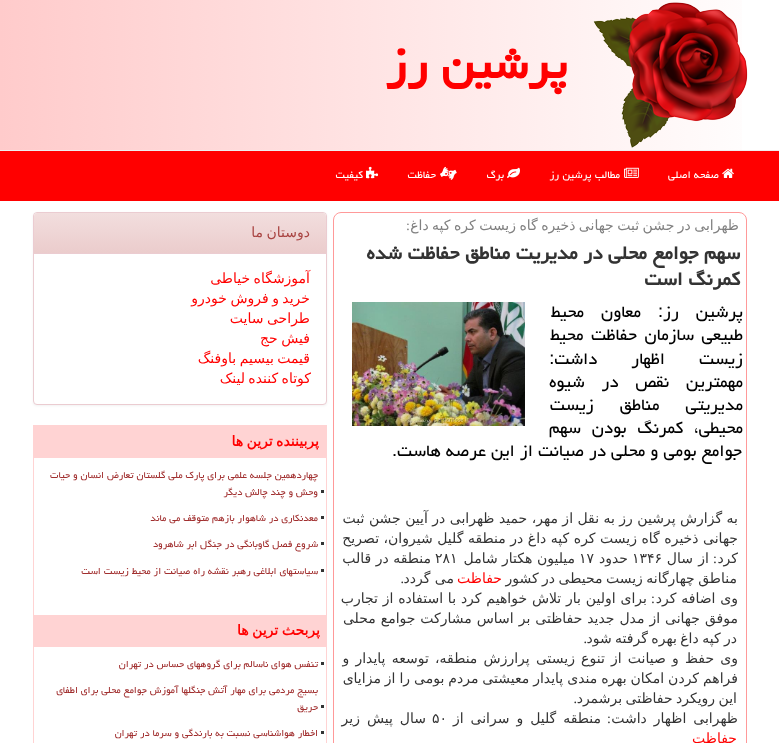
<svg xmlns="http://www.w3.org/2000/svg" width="779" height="743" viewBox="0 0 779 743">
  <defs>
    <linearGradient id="g1" gradientUnits="userSpaceOnUse" x1="0" y1="75" x2="779" y2="75"><stop offset="0" stop-color="rgb(255,203,203)"/><stop offset="1" stop-color="rgb(255,255,255)"/></linearGradient>
    <linearGradient id="g2" gradientUnits="userSpaceOnUse" x1="180" y1="213" x2="180" y2="253"><stop offset="0" stop-color="rgb(242,222,222)"/><stop offset="1" stop-color="rgb(235,204,204)"/></linearGradient>
  </defs>
  <rect width="100%" height="100%" fill="rgb(255,255,255)"/>
  <rect x="0" y="0" width="742" height="150" fill="url(#g1)"/>
  <rect x="0" y="150" width="779" height="1" fill="rgb(238,238,238)"/>
  <image x="593" y="2" width="155" height="146" href="pic1.png"/>
  <text x="567" y="78" font-family="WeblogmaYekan" font-size="56" font-weight="bold" direction="rtl" fill="rgb(255,0,0)">پرشین رز</text>
  <rect x="0" y="151" width="779" height="50" fill="rgb(255,0,0)"/>
  <image x="722" y="168" width="12" height="10" href="pic2.png"/>
  <text x="719" y="178" font-family="WeblogmaYekan" font-size="13" direction="rtl" fill="rgb(255,255,255)">صفحه اصلی</text>
  <image x="624" y="167" width="15" height="11" href="pic3.png"/>
  <text x="620" y="178" font-family="WeblogmaYekan" font-size="13" direction="rtl" fill="rgb(255,255,255)">مطالب پرشین رز</text>
  <image x="507" y="167" width="13" height="11" href="pic4.png"/>
  <text x="504" y="178" font-family="WeblogmaYekan" font-size="13" direction="rtl" fill="rgb(255,255,255)">برگ</text>
  <image x="440" y="166" width="17" height="14" href="pic5.png"/>
  <text x="436" y="178" font-family="WeblogmaYekan" font-size="13" direction="rtl" fill="rgb(255,255,255)">حفاظت</text>
  <image x="366" y="166" width="13" height="13" href="pic6.png"/>
  <text x="363" y="178" font-family="WeblogmaYekan" font-size="13" direction="rtl" fill="rgb(255,255,255)">کیفیت</text>
  <rect x="333.5" y="212.5" width="413" height="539" rx="7.5" fill="none" stroke="rgb(255,153,153)"/>
  <text x="739" y="230" word-spacing="-1" font-family="DejaVu Sans" font-size="14" direction="rtl" fill="rgb(128,128,128)">ظهرابی در جشن ثبت جهانی ذخیره گاه زیست كره كپه داغ</text>
  <text x="410" y="230" font-family="Liberation Serif" font-size="14" direction="rtl" fill="rgb(128,128,128)">:</text>
  <g font-family="WeblogmaYekan" font-size="23.75" font-weight="bold" direction="rtl" fill="rgb(51,51,51)">
    <text>
      <tspan x="740" y="259">سهم جوامع محلی در مدیریت مناطق حفاظت شده</tspan>
      <tspan x="740" y="285">كمرنگ است</tspan>
    </text>
  </g>
  <text x="743" y="317" word-spacing="12" font-family="WeblogmaYekan" font-size="21" direction="rtl" fill="rgb(0,0,0)">پرشین رز: معاون محیط</text>
  <image x="352" y="302" width="173" height="124" href="pic7.png"/>
  <g font-family="WeblogmaYekan" font-size="21" direction="rtl" fill="rgb(0,0,0)">
    <text>
      <tspan x="743" y="340" word-spacing="2.5">طبیعی سازمان حفاظت محیط</tspan>
      <tspan x="743" y="364" word-spacing="29">زیست اظهار داشت:</tspan>
      <tspan x="743" y="387" word-spacing="12">مهمترین نقص در شیوه</tspan>
      <tspan x="743" y="410" word-spacing="21">مدیریتی مناطق زیست</tspan>
      <tspan x="743" y="433" word-spacing="6">محیطی، كمرنگ بودن سهم</tspan>
    </text>
    <text x="742" y="456">جوامع بومی و محلی در صیانت از این عرصه هاست.</text>
  </g>
  <g font-family="DejaVu Sans" font-size="14" direction="rtl" fill="rgb(51,51,51)">
    <text>
      <tspan x="738" y="523">به گزارش پرشین رز به نقل از مهر، حمید ظهرابی در آیین جشن ثبت</tspan>
      <tspan x="738" y="543" word-spacing="0.1">جهانی ذخیره گاه زیست كره كپه داغ در منطقه گلیل شیروان، تصریح</tspan>
      <tspan x="738" y="563">كرد</tspan>
    </text>
  </g>
  <text x="717" y="563" font-family="Liberation Serif" font-size="14" direction="rtl" fill="rgb(51,51,51)">:</text>
  <text x="709" y="563" word-spacing="1" font-family="DejaVu Sans" font-size="14" direction="rtl" fill="rgb(51,51,51)">از سال</text>
  <text x="632" y="563" font-family="DejaVu Sans" font-size="14" fill="rgb(51,51,51)">۱۳۴۶</text>
  <text x="628" y="563" font-family="DejaVu Sans" font-size="14" direction="rtl" fill="rgb(51,51,51)">حدود</text>
  <text x="579" y="563" font-family="DejaVu Sans" font-size="14" fill="rgb(51,51,51)">۱۷</text>
  <text x="575" y="563" font-family="DejaVu Sans" font-size="14" direction="rtl" fill="rgb(51,51,51)">میلیون هكتار شامل</text>
  <text x="435" y="563" font-family="DejaVu Sans" font-size="14" fill="rgb(51,51,51)">۲۸۱</text>
  <g font-family="DejaVu Sans" font-size="14" direction="rtl" fill="rgb(51,51,51)">
    <text x="431" y="563">منطقه در قالب</text>
    <text x="737" y="583" word-spacing="-1">مناطق چهارگانه زیست محیطی در كشور</text>
  </g>
  <text x="502" y="583" font-family="DejaVu Sans" font-size="14" direction="rtl" fill="rgb(255,0,0)">حفاظت</text>
  <text x="454" y="583" font-family="DejaVu Sans" font-size="14" direction="rtl" fill="rgb(51,51,51)">می گردد</text>
  <text x="404" y="583" font-family="Liberation Serif" font-size="14" direction="rtl" fill="rgb(51,51,51)">.</text>
  <text x="738" y="603" word-spacing="0.4" font-family="DejaVu Sans" font-size="14" direction="rtl" fill="rgb(51,51,51)">وی اضافه كرد</text>
  <text x="655" y="603" font-family="Liberation Serif" font-size="14" direction="rtl" fill="rgb(51,51,51)">:</text>
  <g font-family="DejaVu Sans" font-size="14" direction="rtl" fill="rgb(51,51,51)">
    <text x="647" y="603" word-spacing="0.4">برای اولین بار تلاش خواهیم كرد با استفاده از تجارب</text>
    <text x="738" y="623" word-spacing="0.5">موفق جهانی از مدل جدید حفاظتی بر اساس مشاركت جوامع محلی</text>
    <text x="737" y="643" word-spacing="-1">در كپه داغ بهره گرفته شود</text>
  </g>
  <text x="587" y="643" font-family="Liberation Serif" font-size="14" direction="rtl" fill="rgb(51,51,51)">.</text>
  <g font-family="DejaVu Sans" font-size="14" direction="rtl" fill="rgb(51,51,51)">
    <text>
      <tspan x="738" y="663" word-spacing="1.75">وی حفظ و صیانت از تنوع زیستی پرارزش منطقه، توسعه پایدار و</tspan>
      <tspan x="738" y="683" word-spacing="-0.5">فراهم كردن امكان بهره مندی پایدار معیشتی مردم بومی را از مزایای</tspan>
    </text>
    <text x="737" y="703" word-spacing="-1">این رویكرد حفاظتی برشمرد</text>
  </g>
  <text x="577" y="703" font-family="Liberation Serif" font-size="14" direction="rtl" fill="rgb(51,51,51)">.</text>
  <text x="738" y="723" word-spacing="2.5" font-family="DejaVu Sans" font-size="14" direction="rtl" fill="rgb(51,51,51)">ظهرابی اظهار داشت</text>
  <text x="611" y="723" font-family="Liberation Serif" font-size="14" direction="rtl" fill="rgb(51,51,51)">:</text>
  <text x="601" y="723" word-spacing="2.5" font-family="DejaVu Sans" font-size="14" direction="rtl" fill="rgb(51,51,51)">منطقه گلیل و سرانی از</text>
  <text x="432" y="723" font-family="DejaVu Sans" font-size="14" fill="rgb(51,51,51)">۵۰</text>
  <text x="426" y="723" word-spacing="2.5" font-family="DejaVu Sans" font-size="14" direction="rtl" fill="rgb(51,51,51)">سال پیش زیر</text>
  <text x="737" y="743" font-family="DejaVu Sans" font-size="14" direction="rtl" fill="rgb(255,0,0)">حفاظت</text>
  <rect x="33" y="213" width="294" height="193" rx="4" fill="rgba(0,0,0,0.05)" filter="blur(1px)"/>
  <rect x="33.5" y="212.5" width="293" height="192" rx="3.5" fill="rgb(255,255,255)" stroke="rgb(235,204,209)"/>
  <path d="M37 213H323C324.5 213 326 214.5 326 216V253H34V216C34 214.5 35.5 213 37 213Z" fill="url(#g2)"/>
  <rect x="34" y="253" width="292" height="1" fill="rgb(235,204,209)"/>
  <text x="310" y="237" word-spacing="-1" font-family="DejaVu Sans" font-size="14" direction="rtl" fill="rgb(169,68,66)">دوستان ما</text>
  <g font-family="DejaVu Sans" font-size="14" direction="rtl" fill="rgb(255,0,0)">
    <text>
      <tspan x="310" y="283" word-spacing="-1">آموزشگاه خیاطی</tspan>
      <tspan x="310" y="303" word-spacing="-1">خرید و فروش خودرو</tspan>
      <tspan x="310" y="323" word-spacing="-1">طراحی سایت</tspan>
      <tspan x="310" y="343" word-spacing="-1">فیش حج</tspan>
      <tspan x="310" y="363" word-spacing="-1">قیمت بیسیم باوفنگ</tspan>
    </text>
    <text x="311" y="383" word-spacing="-1">کوتاه کننده لینک</text>
  </g>
  <rect x="33.5" y="425.5" width="293" height="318" fill="none" stroke="rgb(255,211,211)"/>
  <rect x="34" y="426" width="292" height="32" fill="rgb(255,211,211)"/>
  <text x="319" y="446" word-spacing="-1" font-family="DejaVu Sans" font-size="14" font-weight="bold" direction="rtl" fill="rgb(255,0,0)">پربیننده ترین ها</text>
  <rect x="321" y="490" width="3" height="3" fill="rgb(51,51,51)"/>
  <g font-family="WeblogmaYekan" font-size="12" direction="rtl" fill="rgb(161,47,47)">
    <text>
      <tspan x="318" y="478">چهاردهمین جلسه علمی برای پارک ملی گلستان تعارض انسان و حیات</tspan>
      <tspan x="318" y="495">وحش و چند چالش دیگر</tspan>
    </text>
  </g>
  <rect x="321" y="516" width="3" height="3" fill="rgb(51,51,51)"/>
  <text x="318" y="521" font-family="WeblogmaYekan" font-size="12" direction="rtl" fill="rgb(161,47,47)">معدنکاری در شاهوار بازهم متوقف می ماند</text>
  <rect x="321" y="542" width="3" height="3" fill="rgb(51,51,51)"/>
  <text x="318" y="547" font-family="WeblogmaYekan" font-size="12" direction="rtl" fill="rgb(161,47,47)">شروع فصل گاوبانگی در جنگل ابر شاهرود</text>
  <rect x="321" y="569" width="3" height="3" fill="rgb(51,51,51)"/>
  <text x="318" y="574" font-family="WeblogmaYekan" font-size="12" direction="rtl" fill="rgb(161,47,47)">سیاستهای ابلاغی رهبر نقشه راه صیانت از محیط زیست است</text>
  <rect x="34" y="615" width="292" height="32" fill="rgb(255,211,211)"/>
  <text x="320" y="635" word-spacing="-1" font-family="DejaVu Sans" font-size="14" font-weight="bold" direction="rtl" fill="rgb(255,0,0)">پربحث ترین ها</text>
  <rect x="321" y="662" width="3" height="3" fill="rgb(51,51,51)"/>
  <text x="318" y="667" font-family="WeblogmaYekan" font-size="12" direction="rtl" fill="rgb(161,47,47)">تنفس هوای ناسالم برای گروههای حساس در تهران</text>
  <rect x="321" y="705" width="3" height="3" fill="rgb(51,51,51)"/>
  <g font-family="WeblogmaYekan" font-size="12" direction="rtl" fill="rgb(161,47,47)">
    <text>
      <tspan x="318" y="693">بسیج مردمی برای مهار آتش جنگلها آموزش جوامع محلی برای اطفای</tspan>
      <tspan x="318" y="710">حریق</tspan>
    </text>
  </g>
  <rect x="321" y="731" width="3" height="3" fill="rgb(51,51,51)"/>
  <text x="318" y="736" font-family="WeblogmaYekan" font-size="12" direction="rtl" fill="rgb(161,47,47)">اخطار هواشناسی نسبت به بارندگی و سرما در تهران</text>
</svg>
